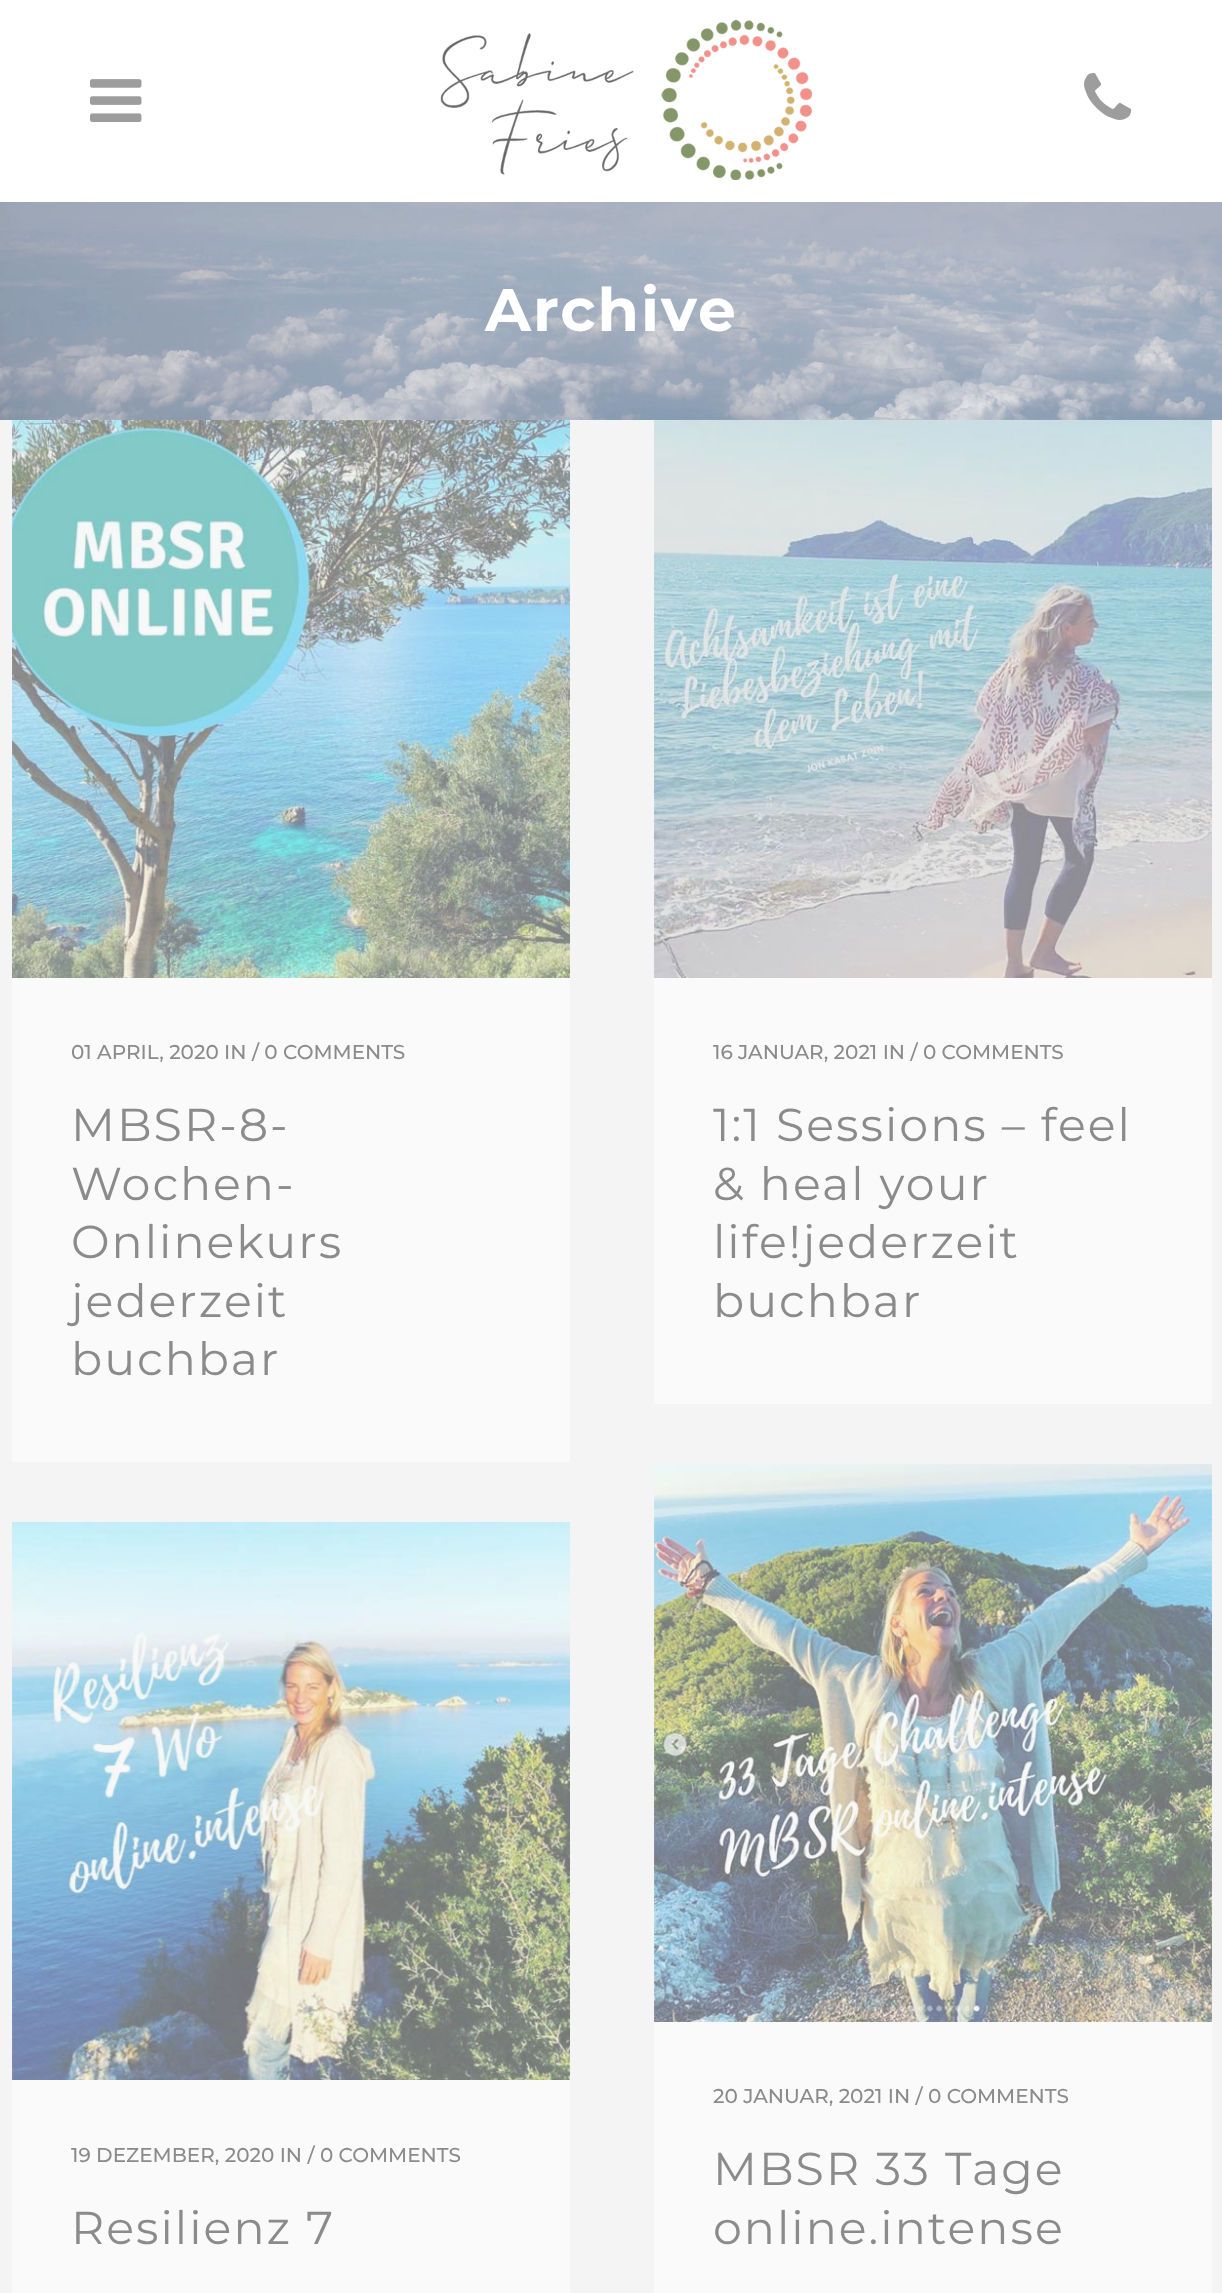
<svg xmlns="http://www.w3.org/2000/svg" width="1222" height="2293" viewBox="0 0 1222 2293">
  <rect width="100%" height="100%" fill="rgb(244,244,244)"/>
  <rect x="0" y="0" width="1222" height="202" fill="rgb(255,255,255)"/>
  <image x="90" y="79" width="52" height="43" href="pic1.png"/>
  <image x="440" y="20" width="372" height="160" href="pic2.png"/>
  <image x="1084" y="72" width="48" height="48" href="pic3.png"/>
  <image x="0" y="202" width="1222" height="218" href="pic4.png"/>
  <text x="485" y="331" font-family="Montserrat" font-size="60" font-weight="bold" letter-spacing="2" fill="rgb(255,255,255)">Archive</text>
  <image x="12" y="420" width="558" height="558" href="pic5.png"/>
  <rect x="12" y="978" width="558" height="484" fill="rgb(250,250,250)"/>
  <text x="71" y="1059" font-family="Montserrat" font-size="20" font-weight="500" fill="rgb(139,139,139)">01 APRIL, 2020 IN / 0 COMMENTS</text>
  <g font-family="Montserrat" font-size="46" letter-spacing="2" fill="rgb(139,139,139)">
    <text>
      <tspan x="71" y="1141">MBSR-8-</tspan>
      <tspan x="71" y="1200">Wochen-</tspan>
      <tspan x="71" y="1258">Onlinekurs</tspan>
      <tspan x="71" y="1317">jederzeit</tspan>
      <tspan x="71" y="1375">buchbar</tspan>
    </text>
  </g>
  <image x="654" y="420" width="558" height="558" href="pic6.png"/>
  <rect x="654" y="978" width="558" height="426" fill="rgb(250,250,250)"/>
  <text x="713" y="1059" font-family="Montserrat" font-size="20" font-weight="500" fill="rgb(139,139,139)">16 JANUAR, 2021 IN / 0 COMMENTS</text>
  <g font-family="Montserrat" font-size="46" letter-spacing="2" fill="rgb(139,139,139)">
    <text>
      <tspan x="713" y="1141">1:1 Sessions – feel</tspan>
      <tspan x="713" y="1200">&amp; heal your</tspan>
      <tspan x="713" y="1258">life!jederzeit</tspan>
      <tspan x="713" y="1317">buchbar</tspan>
    </text>
  </g>
  <image x="12" y="1522" width="558" height="558" href="pic7.png"/>
  <rect x="12" y="2080" width="558" height="213" fill="rgb(250,250,250)"/>
  <text x="71" y="2162" font-family="Montserrat" font-size="20" font-weight="500" fill="rgb(139,139,139)">19 DEZEMBER, 2020 IN / 0 COMMENTS</text>
  <text x="71" y="2244" font-family="Montserrat" font-size="46" letter-spacing="2" fill="rgb(139,139,139)">Resilienz 7</text>
  <image x="654" y="1464" width="558" height="558" href="pic8.png"/>
  <rect x="654" y="2022" width="558" height="271" fill="rgb(250,250,250)"/>
  <text x="713" y="2103" font-family="Montserrat" font-size="20" font-weight="500" fill="rgb(139,139,139)">20 JANUAR, 2021 IN / 0 COMMENTS</text>
  <g font-family="Montserrat" font-size="46" letter-spacing="2" fill="rgb(139,139,139)">
    <text>
      <tspan x="713" y="2185">MBSR 33 Tage</tspan>
      <tspan x="713" y="2244">online.intense</tspan>
    </text>
  </g>
</svg>
